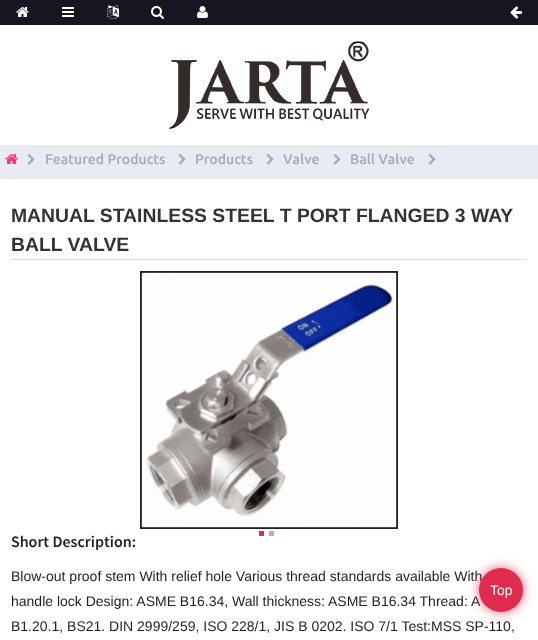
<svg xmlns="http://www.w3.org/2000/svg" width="538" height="640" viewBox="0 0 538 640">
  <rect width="100%" height="100%" fill="rgb(255,255,255)"/>
  <rect x="0" y="0" width="538" height="25" fill="rgb(22,22,34)"/>
  <image x="16" y="7" width="13" height="10" href="pic1.png"/>
  <image x="62" y="7" width="12" height="10" href="pic2.png"/>
  <image x="107" y="5" width="12" height="14" href="pic3.png"/>
  <image x="151" y="6" width="13" height="13" href="pic4.png"/>
  <image x="197" y="6" width="11" height="12" href="pic5.png"/>
  <image x="510" y="6" width="12" height="13" href="pic6.png"/>
  <image x="169" y="41" width="200" height="88" href="pic7.png"/>
  <rect x="0" y="145" width="538" height="34" fill="rgb(232,235,242)"/>
  <image x="5" y="153" width="13" height="11" href="pic8.png"/>
  <image x="27" y="154" width="8" height="11" href="pic9.png"/>
  <text x="45" y="164" font-family="Ubuntu" font-size="14" font-weight="500" fill="rgb(164,173,187)">Featured Products</text>
  <image x="178" y="154" width="8" height="11" href="pic9.png"/>
  <text x="195" y="164" font-family="Ubuntu" font-size="14" font-weight="500" fill="rgb(164,173,187)">Products</text>
  <image x="266" y="154" width="8" height="11" href="pic9.png"/>
  <text x="283" y="164" font-family="Ubuntu" font-size="14" font-weight="500" fill="rgb(164,173,187)">Valve</text>
  <image x="333" y="154" width="8" height="11" href="pic9.png"/>
  <text x="350" y="164" font-family="Ubuntu" font-size="14" font-weight="500" fill="rgb(164,173,187)">Ball Valve</text>
  <image x="428" y="154" width="8" height="11" href="pic9.png"/>
  <rect x="11" y="259" width="516" height="1" fill="rgb(204,222,232)"/>
  <g font-family="Liberation Sans" font-size="19.35" font-weight="bold" fill="rgb(51,51,51)">
    <text>
      <tspan x="11" y="222">MANUAL STAINLESS STEEL T PORT FLANGED 3 WAY</tspan>
      <tspan x="11" y="251">BALL VALVE</tspan>
    </text>
  </g>
  <rect x="141" y="272" width="256" height="256" fill="none" stroke="rgb(35,31,32)" stroke-width="2"/>
  <image x="141" y="272" width="256" height="256" href="pic10.png"/>
  <rect x="259" y="531" width="5" height="5" fill="rgb(223,43,78)"/>
  <rect x="269" y="531" width="5" height="5" fill="rgb(165,183,194)"/>
  <text x="11" y="547" font-family="Source Sans Pro" font-size="16" font-weight="600" fill="rgb(35,31,32)">Short Description:</text>
  <g font-family="Liberation Sans" font-size="14" fill="rgb(35,31,32)">
    <text>
      <tspan x="11" y="581">Blow-out proof stem With relief hole Various thread standards available With</tspan>
      <tspan x="11" y="606">handle lock Design: ASME B16.34, Wall thickness: ASME B16.34 Thread: A</tspan>
      <tspan x="11" y="631">B1.20.1, BS21. DIN 2999/259, ISO 228/1, JIS B 0202. ISO 7/1 Test:MSS SP-110,</tspan>
    </text>
  </g>
  <rect x="479" y="568" width="44" height="44" rx="22" fill="rgba(223,43,78,0.8)" filter="blur(5.5px)"/>
  <circle cx="501" cy="590" r="22" fill="rgb(223,43,78)"/>
  <text x="490" y="595" font-family="Liberation Sans" font-size="14" fill="rgb(255,255,255)">Top</text>
</svg>
